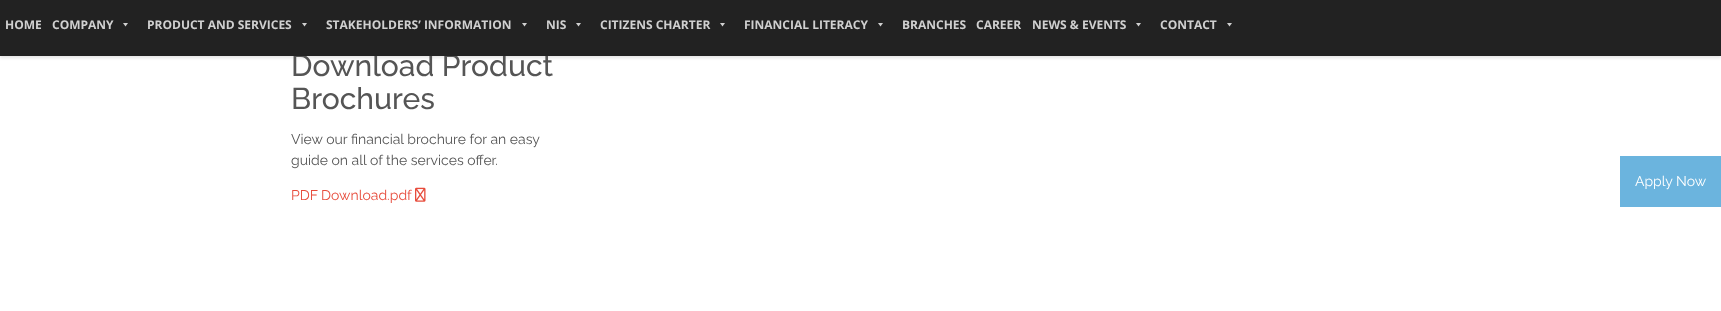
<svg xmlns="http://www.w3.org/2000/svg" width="1721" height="311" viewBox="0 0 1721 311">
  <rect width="100%" height="100%" fill="rgb(255,255,255)"/>
  <rect x="0" y="-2" width="1721" height="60" fill="rgba(0,0,0,0.1)" filter="blur(1.5px)"/>
  <text x="291" y="76" font-family="Raleway" font-size="30" font-weight="500" fill="rgb(85,85,85)">Download Product</text>
  <rect x="0" y="0" width="1721" height="56" fill="rgb(34,34,34)"/>
  <g font-family="Open Sans" font-size="12" font-weight="bold" fill="rgb(208,208,208)">
    <text x="5" y="29">HOME</text>
    <text x="52" y="29">COMPANY</text>
  </g>
  <path d="M128 23L125.5 26.5L123 23Z" fill="rgb(208,208,208)"/>
  <text x="147" y="29" font-family="Open Sans" font-size="12" font-weight="bold" fill="rgb(208,208,208)">PRODUCT AND SERVICES</text>
  <path d="M307 23L304.5 26.5L302 23Z" fill="rgb(208,208,208)"/>
  <text x="326" y="29" font-family="Open Sans" font-size="12" font-weight="bold" fill="rgb(208,208,208)">STAKEHOLDERS’ INFORMATION</text>
  <path d="M527 23L524.5 26.5L522 23Z" fill="rgb(208,208,208)"/>
  <text x="546" y="29" font-family="Open Sans" font-size="12" font-weight="bold" fill="rgb(208,208,208)">NIS</text>
  <path d="M581 23L578.5 26.5L576 23Z" fill="rgb(208,208,208)"/>
  <text x="600" y="29" font-family="Open Sans" font-size="12" font-weight="bold" fill="rgb(208,208,208)">CITIZENS CHARTER</text>
  <path d="M725 23L722.5 26.5L720 23Z" fill="rgb(208,208,208)"/>
  <text x="744" y="29" font-family="Open Sans" font-size="12" font-weight="bold" fill="rgb(208,208,208)">FINANCIAL LITERACY</text>
  <path d="M883 23L880.5 26.5L878 23Z" fill="rgb(208,208,208)"/>
  <g font-family="Open Sans" font-size="12" font-weight="bold" fill="rgb(208,208,208)">
    <text x="902" y="29">BRANCHES</text>
    <text x="976" y="29">CAREER</text>
    <text x="1032" y="29">NEWS &amp; EVENTS</text>
  </g>
  <path d="M1141 23L1138.5 26.5L1136 23Z" fill="rgb(208,208,208)"/>
  <text x="1160" y="29" font-family="Open Sans" font-size="12" font-weight="bold" fill="rgb(208,208,208)">CONTACT</text>
  <path d="M1232 23L1229.5 26.5L1227 23Z" fill="rgb(208,208,208)"/>
  <text x="291" y="109" font-family="Raleway" font-size="30" font-weight="500" fill="rgb(85,85,85)">Brochures</text>
  <g font-family="Raleway" font-size="14" fill="rgb(85,85,85)">
    <text>
      <tspan x="291" y="144">View our financial brochure for an easy</tspan>
      <tspan x="291" y="165">guide on all of the services offer.</tspan>
    </text>
  </g>
  <g font-family="Raleway" font-size="14" fill="rgb(231,76,60)">
    <text x="291" y="200">PDF</text>
    <text x="321" y="200">Download.pdf</text>
  </g>
  <image x="415" y="187" width="11" height="15" href="pic1.png"/>
  <rect x="1620" y="156" width="101" height="51" fill="rgb(107,180,222)"/>
  <text x="1635" y="186" font-family="Raleway" font-size="14" fill="rgb(255,255,255)">Apply Now</text>
</svg>
